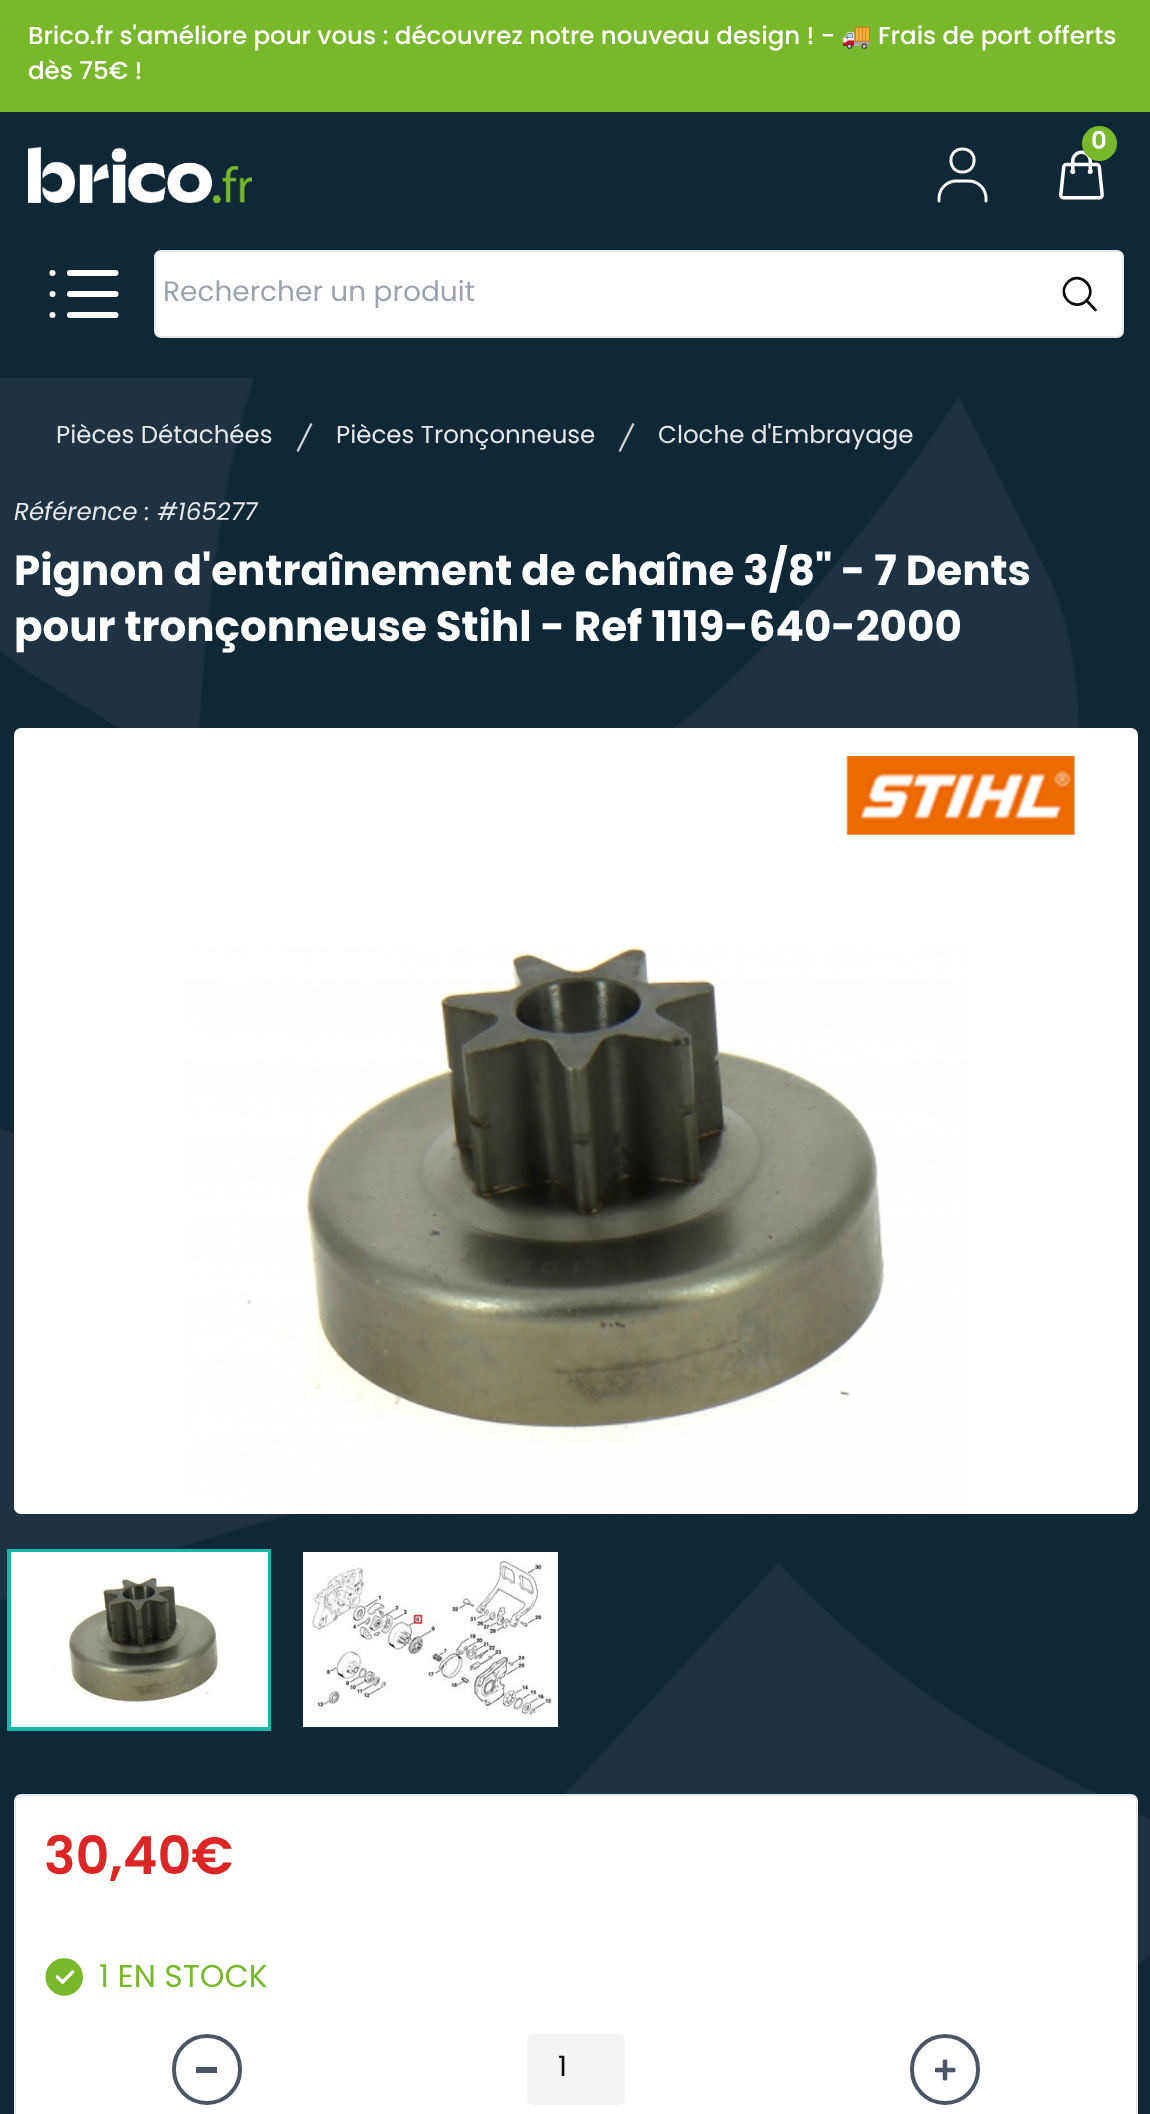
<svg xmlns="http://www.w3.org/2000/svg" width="1150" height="2114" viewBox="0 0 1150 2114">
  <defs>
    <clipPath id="clip1"><rect x="163" y="280" width="856" height="28"/></clipPath>
  </defs>
  <rect width="100%" height="100%" fill="rgb(14,40,56)"/>
  <image x="0" y="378" width="1150" height="1588" href="pic1.png"/>
  <rect x="0" y="0" width="1150" height="112" fill="rgb(120,184,42)"/>
  <text x="28" y="44" font-family="Poppins" font-size="24.5" font-weight="500" fill="rgb(255,255,255)">Brico.fr s'améliore pour vous : découvrez notre nouveau design ! -</text>
  <text x="841" y="44" font-family="Noto Color Emoji" font-size="24.5" fill="rgb(255,255,255)">🚚</text>
  <g font-family="Poppins" font-size="24.5" font-weight="500" fill="rgb(255,255,255)">
    <text x="878" y="44">Frais de port offerts</text>
    <text x="28" y="79">dès 75€ !</text>
  </g>
  <image x="1059" y="150" width="45" height="50" href="pic2.png"/>
  <circle cx="1099.5" cy="143.5" r="17.5" fill="rgb(120,184,42)"/>
  <text x="1091" y="149" font-family="Poppins" font-size="24.5" font-weight="600" fill="rgb(255,255,255)">0</text>
  <path d="M939 201V198.5C939 188.5 947 181 956.5 181H968.5C978 181 986 188.5 986 198.5V201M962.5 172C947 172 947 149 962.5 149C978 149 978 172 962.5 172" fill="none" stroke="rgb(255,255,255)" stroke-width="2.9" stroke-linecap="round"/>
  <image x="28" y="147" width="224" height="56" href="pic3.png"/>
  <path d="M70 273H115.5M70 294H115.5M70 315H115.5M52.5 273H52.5M52.5 294H52.5M52.5 315H52.5" fill="none" stroke="rgb(255,255,255)" stroke-width="6.1" stroke-linecap="round" stroke-linejoin="round"/>
  <rect x="155" y="251" width="968" height="86" rx="6" fill="rgb(255,255,255)" stroke="rgb(229,231,235)" stroke-width="2"/>
  <g clip-path="url(#clip1)">
    <text x="163" y="301" font-family="Poppins" font-size="28" fill="rgb(156,163,175)">Rechercher un produit</text>
  </g>
  <path d="M1095.5 310L1086.5 300.5M1086.5 300.5C1098.5 288.5 1080 270 1068 282C1055.5 294.5 1074 313 1086.5 300.5Z" fill="none" stroke="rgb(10,10,10)" stroke-width="2.6" stroke-linecap="round" stroke-linejoin="round"/>
  <text x="56" y="443" font-family="Poppins" font-size="24.5" fill="rgb(229,231,235)">Pièces Détachées</text>
  <path d="M296.5 451L310.5 423L312.5 424L298.5 452Z" fill="rgb(209,213,219)"/>
  <text x="336" y="443" font-family="Poppins" font-size="24.5" fill="rgb(229,231,235)">Pièces Tronçonneuse</text>
  <path d="M618.5 451L632.5 423L634.5 424L620.5 452Z" fill="rgb(209,213,219)"/>
  <text x="658" y="443" font-family="Poppins" font-size="24.5" fill="rgb(229,231,235)">Cloche d'Embrayage</text>
  <text x="14" y="520" font-family="Poppins" font-size="24.5" font-style="italic" fill="rgb(229,231,235)">Référence : #165277</text>
  <g font-family="Poppins" font-size="42" font-weight="bold" fill="rgb(255,255,255)">
    <text>
      <tspan x="14" y="585">Pignon d'entraînement de chaîne 3/8" - 7 Dents</tspan>
      <tspan x="14" y="641">pour tronçonneuse Stihl - Ref 1119-640-2000</tspan>
    </text>
  </g>
  <rect x="14" y="728" width="1124" height="786" rx="7" fill="rgb(255,255,255)"/>
  <image x="846" y="756" width="229" height="79" href="pic4.png"/>
  <image x="14" y="946" width="1121" height="568" href="pic5.png"/>
  <rect x="15" y="1556" width="249" height="167" fill="rgb(255,255,255)"/>
  <image x="37" y="1556" width="203" height="151" href="pic6.png"/>
  <rect x="10.5" y="1552.5" width="257" height="175" fill="none" stroke="rgb(20,184,166)" stroke-width="7"/>
  <rect x="13" y="1554" width="253" height="171" fill="none" stroke="rgb(255,255,255)" stroke-width="4"/>
  <rect x="307" y="1720" width="247" height="3" fill="rgb(255,255,255)"/>
  <image x="307" y="1556" width="247" height="164" href="pic7.png"/>
  <rect x="305" y="1554" width="251" height="171" fill="none" stroke="rgb(255,255,255)" stroke-width="4"/>
  <rect x="15" y="1795" width="1122" height="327" rx="6" fill="rgb(255,255,255)" stroke="rgb(229,231,235)" stroke-width="2"/>
  <text x="44" y="1874" font-family="Poppins" font-size="52.5" font-weight="600" fill="rgb(220,38,38)">30,40€</text>
  <image x="45" y="1958" width="38" height="38" href="pic8.png"/>
  <text x="99" y="1987" font-family="Poppins" font-size="31.5" fill="rgb(120,184,42)">1 EN STOCK</text>
  <rect x="174" y="2036" width="66" height="67" rx="33" fill="none" stroke="rgb(75,85,99)" stroke-width="4"/>
  <rect x="196" y="2067" width="21" height="6" fill="rgb(75,85,99)"/>
  <rect x="527" y="2034" width="98" height="71" rx="7" fill="rgb(243,244,246)"/>
  <text x="558" y="2076" font-family="Poppins" font-size="28" fill="rgb(10,10,10)">1</text>
  <rect x="912" y="2036" width="66" height="67" rx="33" fill="none" stroke="rgb(75,85,99)" stroke-width="4"/>
  <image x="935" y="2059" width="21" height="22" href="pic9.png"/>
</svg>
